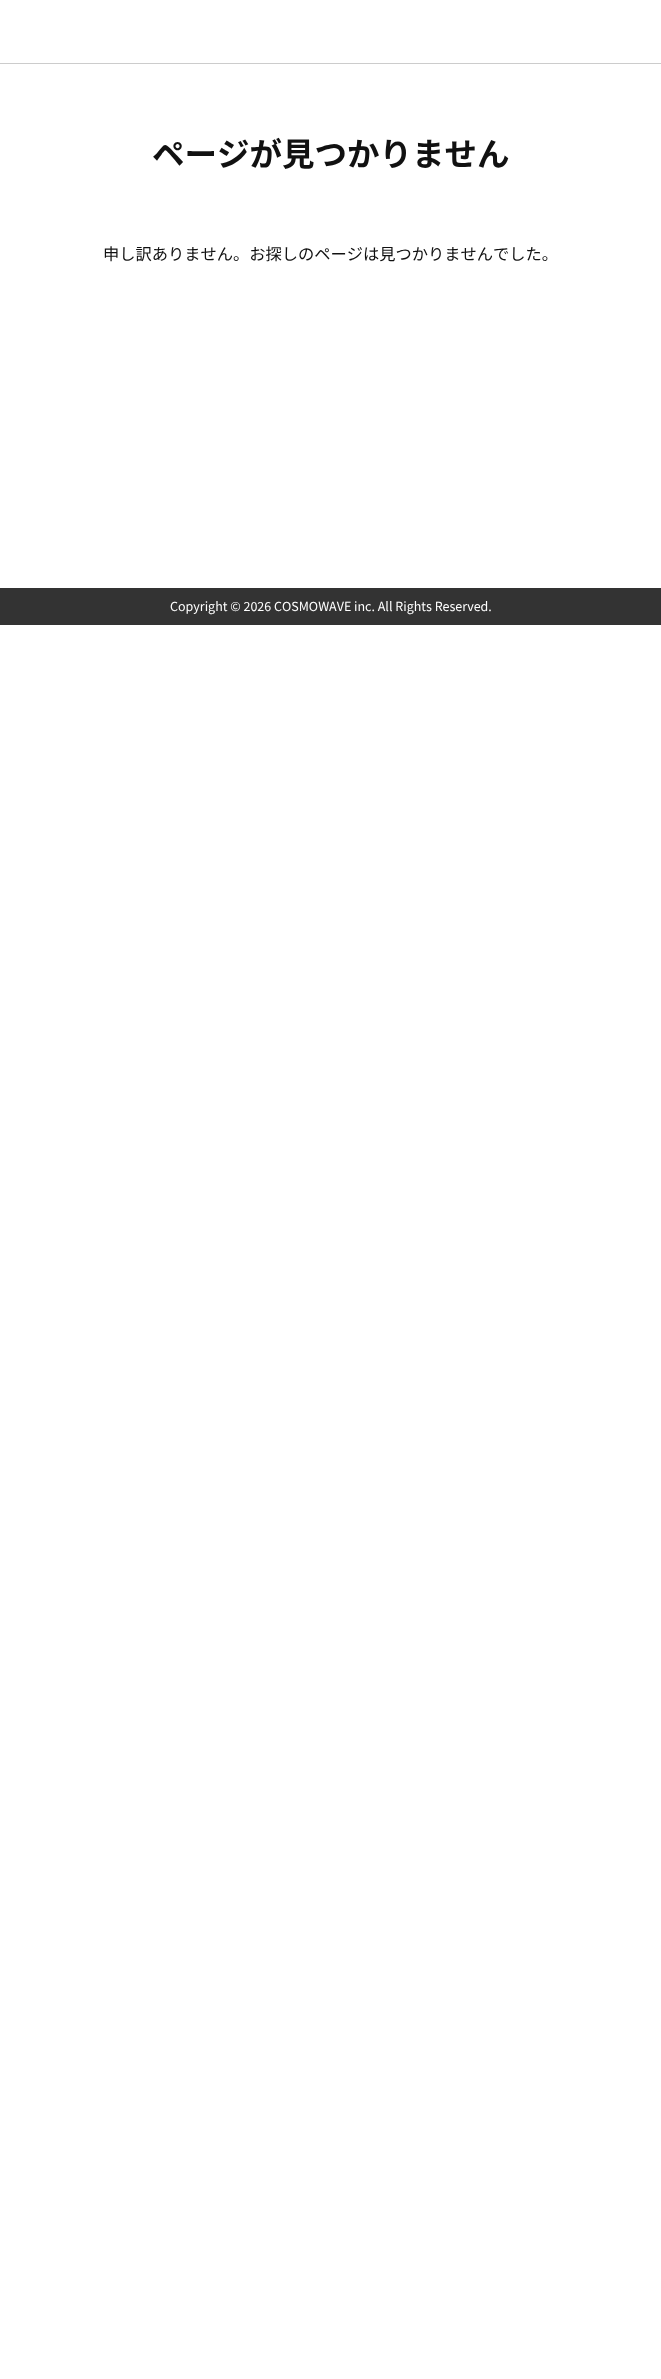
<svg xmlns="http://www.w3.org/2000/svg" width="661" height="2379" viewBox="0 0 661 2379">
  <style>*{font-kerning:none!important;font-variant-ligatures:none!important}</style>
  <rect width="100%" height="100%" fill="rgb(255,255,255)"/>
  <rect x="0" y="63" width="661" height="1" fill="rgb(204,204,204)"/>
  <text x="152" y="166" font-family="Noto Sans JP" font-size="32.5" font-weight="bold" fill="rgb(17,17,17)">ページが見つかりません</text>
  <text x="103" y="260" font-family="Noto Sans JP" font-size="16.25" fill="rgb(17,17,17)">申し訳ありません。お探しのページは見つかりませんでした。</text>
  <rect x="0" y="588" width="661" height="37" fill="rgb(51,51,51)"/>
  <text x="170" y="611" font-family="Noto Sans JP" font-size="12.5" fill="rgb(255,255,255)">Copyright © 2026 COSMOWAVE inc. All Rights Reserved.</text>
</svg>
